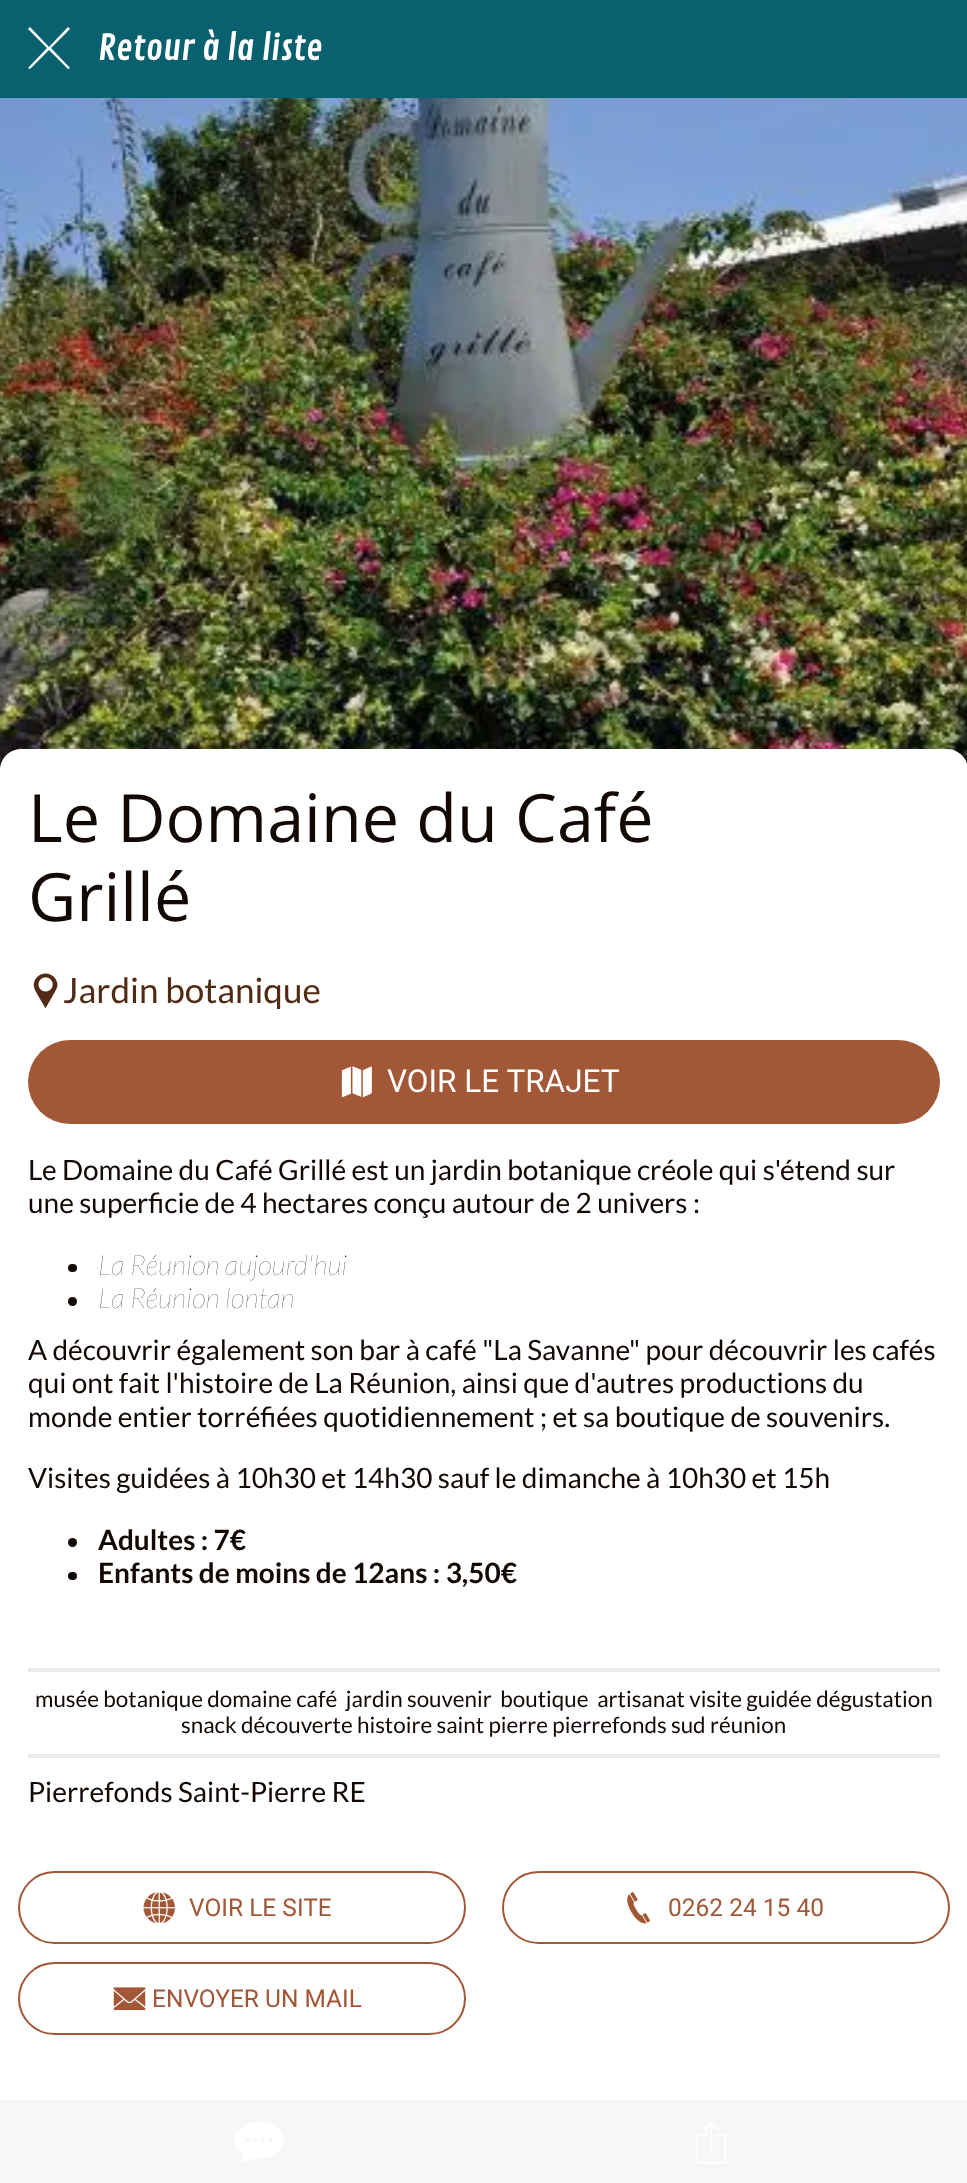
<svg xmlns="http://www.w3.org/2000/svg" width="967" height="2183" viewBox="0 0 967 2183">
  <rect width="100%" height="100%" fill="rgb(255,255,255)"/>
  <rect x="0" y="0" width="967" height="98" fill="rgb(9,97,112)"/>
  <path d="M70 29L68 27L49 47L30 27L28 29L47 48L28 68L30 69L49 50L68 69L70 68L51 48Z" fill="rgb(255,255,255)"/>
  <text x="98" y="60" font-family="Contrail One" font-size="35" fill="rgb(255,255,255)">Retour à la liste</text>
  <image x="0" y="98" width="967" height="672" href="pic1.png"/>
  <path d="M21 749H947C958.5 749 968 758.5 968 770V2086H0V770C0 758.5 9.5 749 21 749Z" fill="rgb(255,255,255)"/>
  <g font-family="Open Sans" font-size="66.5" fill="rgb(18,9,4)">
    <text>
      <tspan x="28" y="842">Le Domaine du Café</tspan>
      <tspan x="28" y="921">Grillé</tspan>
    </text>
  </g>
  <image x="33" y="973" width="25" height="36" href="pic2.png"/>
  <text x="63" y="1003" font-family="Lato" font-size="35" fill="rgb(81,43,22)">Jardin botanique</text>
  <rect x="28" y="1040" width="912" height="84" rx="42" fill="rgb(162,87,55)"/>
  <image x="341" y="1066" width="31" height="32" href="pic3.png"/>
  <text x="387" y="1092" font-family="Roboto" font-size="31.5" fill="rgb(255,255,255)">VOIR LE TRAJET</text>
  <g font-family="Lato" font-size="28" fill="rgb(18,9,4)">
    <text>
      <tspan x="28" y="1180">Le Domaine du Café Grillé est un jardin botanique créole qui s'étend sur</tspan>
      <tspan x="28" y="1213">une superficie de 4 hectares conçu autour de 2 univers :</tspan>
    </text>
  </g>
  <rect x="68" y="1264" width="9" height="8" rx="4" fill="rgb(18,9,4)"/>
  <text x="98" y="1275" font-family="Lato" font-size="28" font-weight="100" font-style="italic" fill="rgb(18,9,4)">La Réunion aujourd'hui</text>
  <circle cx="72.5" cy="1301.5" r="4.5" fill="rgb(18,9,4)"/>
  <text x="98" y="1308" font-family="Lato" font-size="28" font-weight="100" font-style="italic" fill="rgb(18,9,4)">La Réunion lontan</text>
  <g font-family="Lato" font-size="28" fill="rgb(18,9,4)">
    <text>
      <tspan x="28" y="1360">A découvrir également son bar à café "La Savanne" pour découvrir les cafés</tspan>
      <tspan x="28" y="1393">qui ont fait l'histoire de La Réunion, ainsi que d'autres productions du</tspan>
      <tspan x="28" y="1427">monde entier torréfiées quotidiennement ; et sa boutique de souvenirs.</tspan>
    </text>
    <text x="28" y="1488">Visites guidées à 10h30 et 14h30 sauf le dimanche à 10h30 et 15h</text>
  </g>
  <circle cx="72.5" cy="1542.5" r="4.5" fill="rgb(18,9,4)"/>
  <text x="98" y="1550" font-family="Lato" font-size="28" font-weight="bold" fill="rgb(18,9,4)">Adultes : 7€</text>
  <rect x="68" y="1572" width="9" height="8" rx="4" fill="rgb(18,9,4)"/>
  <text x="98" y="1583" font-family="Lato" font-size="28" font-weight="bold" fill="rgb(18,9,4)">Enfants de moins de 12ans : 3,50€</text>
  <rect x="28" y="1668" width="912" height="4" fill="rgb(234,234,234)"/>
  <g font-family="Lato" font-size="22.4" fill="rgb(18,9,4)">
    <text x="35" y="1707" xml:space="preserve">musée botanique domaine café  jardin souvenir  boutique  artisanat visite guidée dégustation</text>
    <text x="181" y="1733">snack découverte histoire saint pierre pierrefonds sud réunion</text>
  </g>
  <rect x="28" y="1754" width="912" height="4" fill="rgb(234,234,234)"/>
  <text x="28" y="1802" font-family="Lato" font-size="28" fill="rgb(18,9,4)">Pierrefonds Saint-Pierre RE</text>
  <rect x="19" y="1872" width="446" height="71" rx="35.5" fill="none" stroke="rgb(162,87,55)" stroke-width="2"/>
  <image x="143" y="1892" width="32" height="32" href="pic4.png"/>
  <text x="189" y="1916" font-family="Roboto" font-size="24.5" fill="rgb(162,87,55)">VOIR LE SITE</text>
  <rect x="503" y="1872" width="446" height="71" rx="35.5" fill="none" stroke="rgb(162,87,55)" stroke-width="2"/>
  <image x="627" y="1892" width="23" height="32" href="pic5.png"/>
  <text x="668" y="1916" font-family="Roboto" font-size="24.5" fill="rgb(162,87,55)">0262 24 15 40</text>
  <rect x="19" y="1963" width="446" height="71" rx="35.5" fill="none" stroke="rgb(162,87,55)" stroke-width="2"/>
  <image x="113" y="1987" width="33" height="24" href="pic6.png"/>
  <text x="152" y="2007" font-family="Roboto" font-size="24.5" fill="rgb(162,87,55)">ENVOYER UN MAIL</text>
  <rect x="0" y="2100" width="967" height="83" fill="rgb(247,247,247)"/>
  <image x="235" y="2122" width="49" height="41" href="pic7.png"/>
  <image x="696" y="2122" width="30" height="42" href="pic8.png"/>
</svg>
